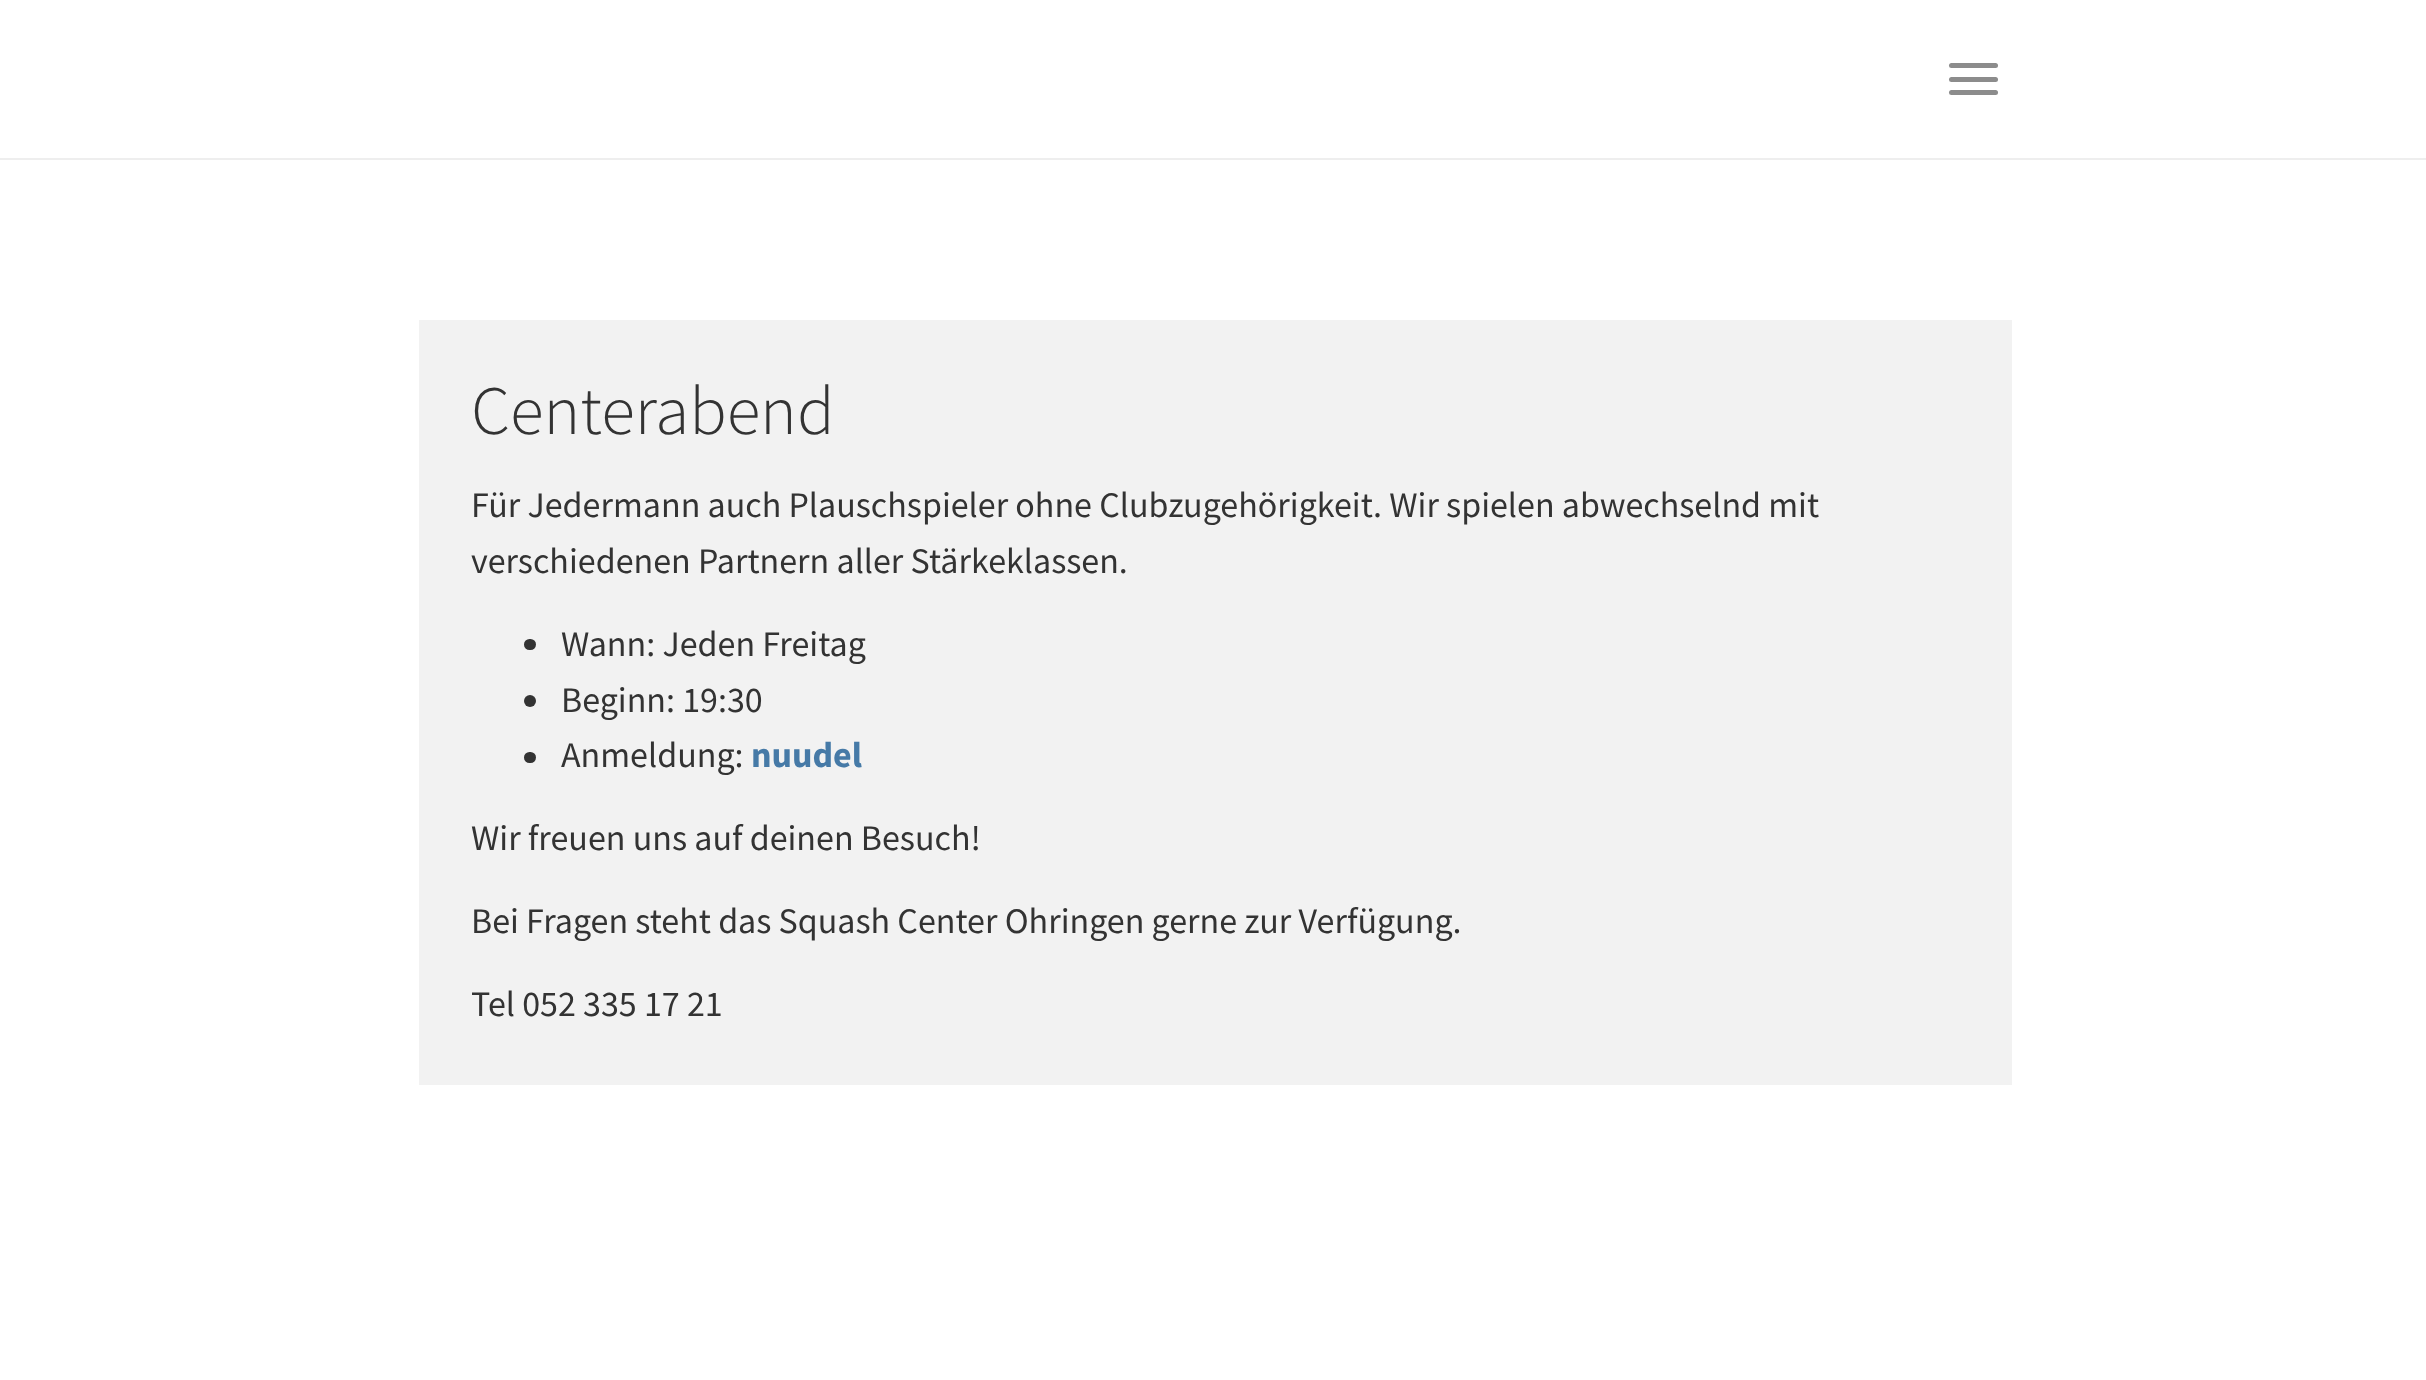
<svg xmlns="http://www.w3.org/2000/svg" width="2426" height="1380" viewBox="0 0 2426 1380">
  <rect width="100%" height="100%" fill="rgb(255,255,255)"/>
  <rect x="0" y="158" width="2426" height="2" fill="rgb(238,238,238)"/>
  <rect x="1949" y="63" width="49" height="5" rx="2.5" fill="rgb(140,140,140)"/>
  <rect x="1949" y="77" width="49" height="5" rx="2.5" fill="rgb(140,140,140)"/>
  <rect x="1949" y="90" width="49" height="5" rx="2.5" fill="rgb(140,140,140)"/>
  <rect x="419" y="320" width="1593" height="765" fill="rgb(242,242,242)"/>
  <text x="471" y="434" font-family="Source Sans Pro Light" font-size="69.25" font-weight="300" fill="rgb(51,51,51)">Centerabend</text>
  <g font-family="Source Sans Pro" font-size="36" fill="rgb(51,51,51)">
    <text>
      <tspan x="471" y="517">Für Jedermann auch Plauschspieler ohne Clubzugehörigkeit. Wir spielen abwechselnd mit</tspan>
      <tspan x="471" y="573">verschiedenen Partnern aller Stärkeklassen.</tspan>
    </text>
  </g>
  <rect x="524" y="639" width="12" height="11" rx="5.5" fill="rgb(51,51,51)"/>
  <text x="561" y="656" font-family="Source Sans Pro" font-size="36" fill="rgb(51,51,51)">Wann: Jeden Freitag</text>
  <circle cx="530" cy="701" r="6" fill="rgb(51,51,51)"/>
  <text x="561" y="712" font-family="Source Sans Pro" font-size="36" fill="rgb(51,51,51)">Beginn: 19:30</text>
  <rect x="524" y="752" width="12" height="11" rx="5.5" fill="rgb(51,51,51)"/>
  <text x="561" y="767" font-family="Source Sans Pro" font-size="36" fill="rgb(51,51,51)">Anmeldung:</text>
  <text x="751" y="767" font-family="Source Sans Pro" font-size="36" font-weight="bold" fill="rgb(70,122,167)">nuudel</text>
  <g font-family="Source Sans Pro" font-size="36" fill="rgb(51,51,51)">
    <text x="471" y="850">Wir freuen uns auf deinen Besuch!</text>
    <text x="471" y="933">Bei Fragen steht das Squash Center Ohringen gerne zur Verfügung.</text>
    <text x="471" y="1016">Tel 052 335 17 21</text>
  </g>
</svg>
